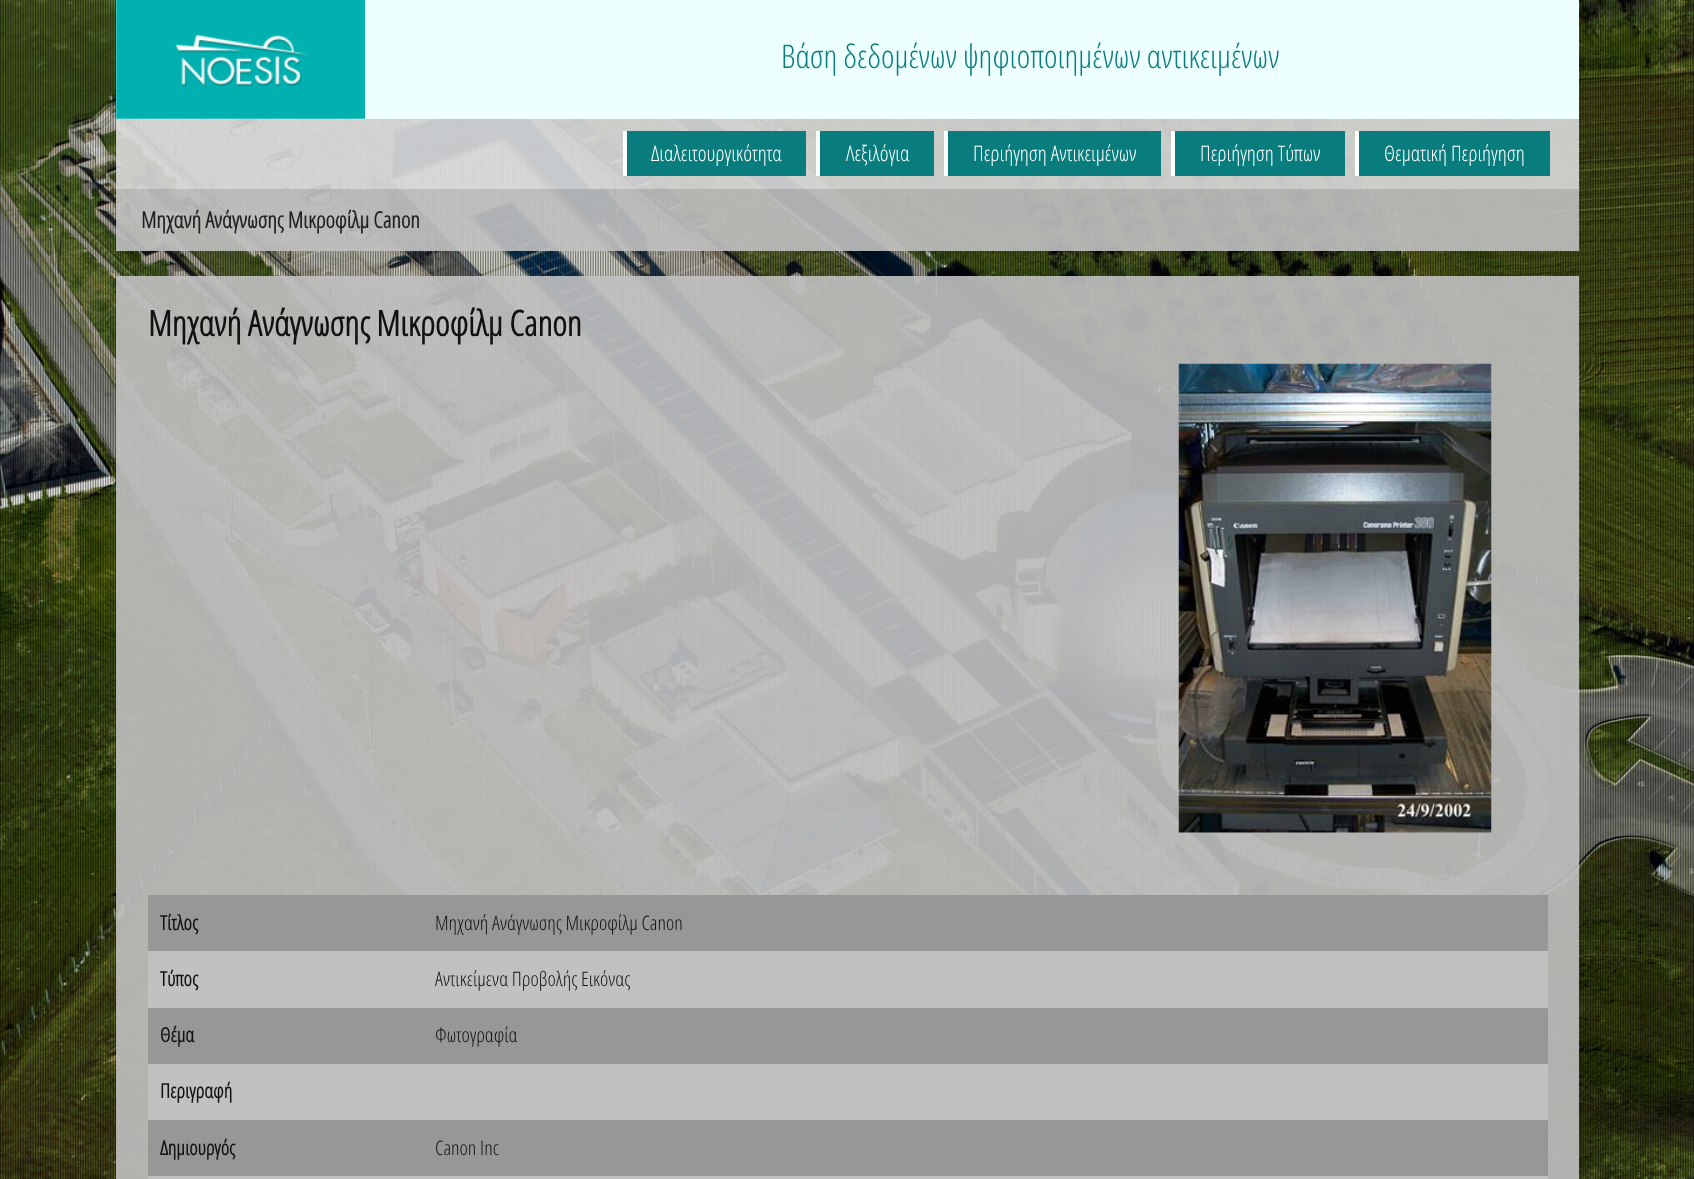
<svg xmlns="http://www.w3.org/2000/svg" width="1694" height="1179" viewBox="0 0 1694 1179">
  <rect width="100%" height="100%" fill="rgb(255,255,255)"/>
  <image x="0" y="0" width="1694" height="1179" href="pic1.png"/>
  <image x="0" y="0" width="1694" height="1179" href="pic2.png"/>
  <rect x="116" y="0" width="1463" height="119" fill="rgb(237,255,255)"/>
  <image x="116" y="0" width="249" height="119" href="pic3.png"/>
  <text x="781" y="68" font-family="Open Sans Condensed" font-size="32.5" font-weight="300" fill="rgb(9,125,125)">Βάση δεδομένων ψηφιοποιημένων αντικειμένων</text>
  <rect x="116" y="119" width="1463" height="70" fill="rgba(220,220,220,0.9)"/>
  <rect x="627" y="131" width="179" height="45" fill="rgb(9,125,125)"/>
  <rect x="623" y="131" width="4" height="45" fill="rgb(255,255,255)"/>
  <text x="651" y="161" font-family="Open Sans Condensed" font-size="21.25" font-weight="300" fill="rgb(255,255,255)">Διαλειτουργικότητα</text>
  <rect x="820" y="131" width="114" height="45" fill="rgb(9,125,125)"/>
  <rect x="816" y="131" width="4" height="45" fill="rgb(255,255,255)"/>
  <text x="846" y="161" font-family="Open Sans Condensed" font-size="21.25" font-weight="300" fill="rgb(255,255,255)">Λεξιλόγια</text>
  <rect x="948" y="131" width="213" height="45" fill="rgb(9,125,125)"/>
  <rect x="944" y="131" width="4" height="45" fill="rgb(255,255,255)"/>
  <text x="973" y="161" font-family="Open Sans Condensed" font-size="21.25" font-weight="300" fill="rgb(255,255,255)">Περιήγηση Αντικειμένων</text>
  <rect x="1175" y="131" width="170" height="45" fill="rgb(9,125,125)"/>
  <rect x="1171" y="131" width="4" height="45" fill="rgb(255,255,255)"/>
  <text x="1200" y="161" font-family="Open Sans Condensed" font-size="21.25" font-weight="300" fill="rgb(255,255,255)">Περιήγηση Τύπων</text>
  <rect x="1359" y="131" width="191" height="45" fill="rgb(9,125,125)"/>
  <rect x="1355" y="131" width="4" height="45" fill="rgb(255,255,255)"/>
  <text x="1384" y="161" font-family="Open Sans Condensed" font-size="21.25" font-weight="300" fill="rgb(255,255,255)">Θεματική Περιήγηση</text>
  <rect x="116" y="189" width="1463" height="62" fill="rgba(193,193,193,0.9)"/>
  <text x="141" y="228" font-family="Open Sans Condensed" font-size="22.5" font-weight="bold" fill="rgb(34,34,34)">Μηχανή Ανάγνωσης Μικροφίλμ Canon</text>
  <rect x="116" y="276" width="1463" height="903" fill="rgba(193,193,193,0.9)"/>
  <text x="148" y="336" font-family="Open Sans Condensed" font-size="35" font-weight="bold" fill="rgb(17,17,17)">Μηχανή Ανάγνωσης Μικροφίλμ Canon</text>
  <image x="1178" y="363" width="314" height="470" href="pic4.png"/>
  <rect x="148" y="895" width="1400" height="56" fill="rgb(151,151,151)"/>
  <text x="160" y="930" font-family="Open Sans Condensed" font-size="20" font-weight="bold" fill="rgb(17,17,17)">Τίτλος</text>
  <text x="435" y="930" font-family="Open Sans Condensed" font-size="20" font-weight="300" fill="rgb(17,17,17)">Μηχανή Ανάγνωσης Μικροφίλμ Canon</text>
  <rect x="148" y="951" width="1400" height="57" fill="rgb(193,193,193)"/>
  <text x="160" y="986" font-family="Open Sans Condensed" font-size="20" font-weight="bold" fill="rgb(17,17,17)">Τύπος</text>
  <text x="435" y="986" font-family="Open Sans Condensed" font-size="20" font-weight="300" fill="rgb(17,17,17)">Αντικείμενα Προβολής Εικόνας</text>
  <rect x="148" y="1008" width="1400" height="56" fill="rgb(151,151,151)"/>
  <text x="160" y="1042" font-family="Open Sans Condensed" font-size="20" font-weight="bold" fill="rgb(17,17,17)">Θέμα</text>
  <text x="435" y="1042" font-family="Open Sans Condensed" font-size="20" font-weight="300" fill="rgb(17,17,17)">Φωτογραφία</text>
  <rect x="148" y="1064" width="1400" height="56" fill="rgb(193,193,193)"/>
  <text x="160" y="1098" font-family="Open Sans Condensed" font-size="20" font-weight="bold" fill="rgb(17,17,17)">Περιγραφή</text>
  <rect x="148" y="1120" width="1400" height="56" fill="rgb(151,151,151)"/>
  <text x="160" y="1155" font-family="Open Sans Condensed" font-size="20" font-weight="bold" fill="rgb(17,17,17)">Δημιουργός</text>
  <text x="435" y="1155" font-family="Open Sans Condensed" font-size="20" font-weight="300" fill="rgb(17,17,17)">Canon Inc</text>
  <rect x="148" y="1176" width="1400" height="3" fill="rgb(193,193,193)"/>
</svg>
